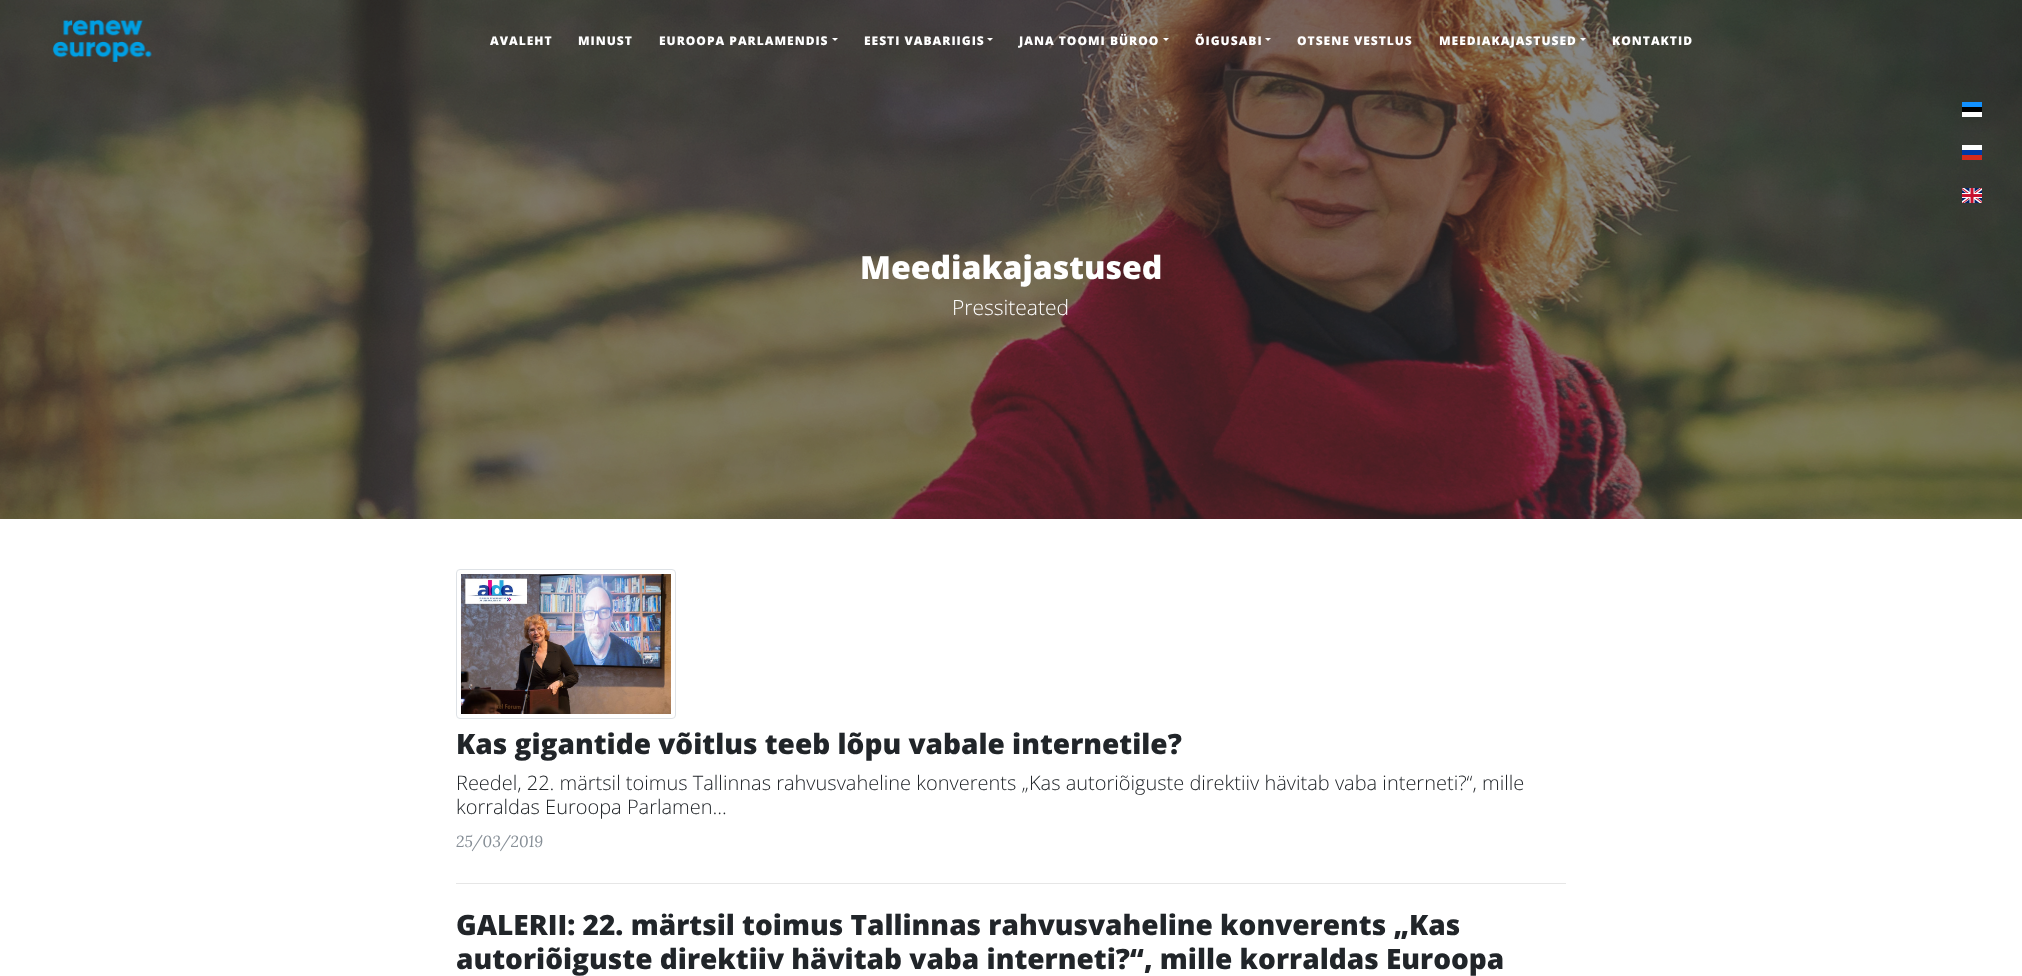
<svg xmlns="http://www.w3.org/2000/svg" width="2022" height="976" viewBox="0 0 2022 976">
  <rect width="100%" height="100%" fill="rgb(255,255,255)"/>
  <image x="0" y="0" width="2022" height="519" href="pic2.png"/>
  <image x="52" y="19" width="100" height="44" href="pic1.png"/>
  <g font-family="Open Sans" font-size="12" font-weight="800" letter-spacing="1" fill="rgb(255,255,255)">
    <text x="490" y="45">AVALEHT</text>
    <text x="578" y="45">MINUST</text>
    <text x="659" y="45">EUROOPA PARLAMENDIS</text>
  </g>
  <path d="M832 38H838L835 41Z" fill="rgb(255,255,255)"/>
  <text x="864" y="45" font-family="Open Sans" font-size="12" font-weight="800" letter-spacing="1" fill="rgb(255,255,255)">EESTI VABARIIGIS</text>
  <path d="M987 38H993L990 41Z" fill="rgb(255,255,255)"/>
  <text x="1019" y="45" font-family="Open Sans" font-size="12" font-weight="800" letter-spacing="1" fill="rgb(255,255,255)">JANA TOOMI BÜROO</text>
  <path d="M1163 38H1169L1166 41Z" fill="rgb(255,255,255)"/>
  <text x="1195" y="45" font-family="Open Sans" font-size="12" font-weight="800" letter-spacing="1" fill="rgb(255,255,255)">ÕIGUSABI</text>
  <path d="M1265 38H1271L1268 41Z" fill="rgb(255,255,255)"/>
  <g font-family="Open Sans" font-size="12" font-weight="800" letter-spacing="1" fill="rgb(255,255,255)">
    <text x="1297" y="45">OTSENE VESTLUS</text>
    <text x="1439" y="45">MEEDIAKAJASTUSED</text>
  </g>
  <path d="M1580 38H1586L1583 41Z" fill="rgb(255,255,255)"/>
  <text x="1612" y="45" font-family="Open Sans" font-size="12" font-weight="800" letter-spacing="1" fill="rgb(255,255,255)">KONTAKTID</text>
  <rect x="1962" y="102" width="20" height="5" fill="rgb(18,145,255)"/>
  <rect x="1962" y="107" width="20" height="5" fill="rgb(0,0,0)"/>
  <rect x="1962" y="112" width="20" height="5" fill="rgb(255,255,255)"/>
  <rect x="1962" y="145" width="20" height="5" fill="rgb(255,255,255)"/>
  <rect x="1962" y="150" width="20" height="5" fill="rgb(0,57,166)"/>
  <rect x="1962" y="155" width="20" height="5" fill="rgb(213,43,30)"/>
  <image x="1962" y="188" width="20" height="15" href="pic3.png"/>
  <text x="860" y="279" font-family="Open Sans" font-size="32" font-weight="800" fill="rgb(255,255,255)">Meediakajastused</text>
  <text x="952" y="315" font-family="Open Sans" font-size="21" font-weight="300" fill="rgb(255,255,255)">Pressiteated</text>
  <rect x="456.5" y="569.5" width="219" height="149" rx="3.5" fill="none" stroke="rgb(222,226,230)"/>
  <image x="461" y="574" width="210" height="140" href="pic4.png"/>
  <text x="456" y="754" font-family="Open Sans" font-size="28" font-weight="800" fill="rgb(33,37,41)">Kas gigantide võitlus teeb lõpu vabale internetile?</text>
  <g font-family="Open Sans" font-size="20" font-weight="300" fill="rgb(33,37,41)">
    <text>
      <tspan x="456" y="790">Reedel, 22. märtsil toimus Tallinnas rahvusvaheline konverents „Kas autoriõiguste direktiiv hävitab vaba interneti?“, mille</tspan>
      <tspan x="456" y="814">korraldas Euroopa Parlamen...</tspan>
    </text>
  </g>
  <text x="456" y="847" font-family="Lora" font-size="16" font-style="italic" fill="rgb(134,142,150)">25/03/2019</text>
  <rect x="456" y="883" width="1110" height="1" fill="rgb(230,230,230)"/>
  <g font-family="Open Sans" font-size="28" font-weight="800" fill="rgb(33,37,41)">
    <text>
      <tspan x="456" y="935">GALERII: 22. märtsil toimus Tallinnas rahvusvaheline konverents „Kas</tspan>
      <tspan x="456" y="969">autoriõiguste direktiiv hävitab vaba interneti?“, mille korraldas Euroopa</tspan>
    </text>
  </g>
</svg>
